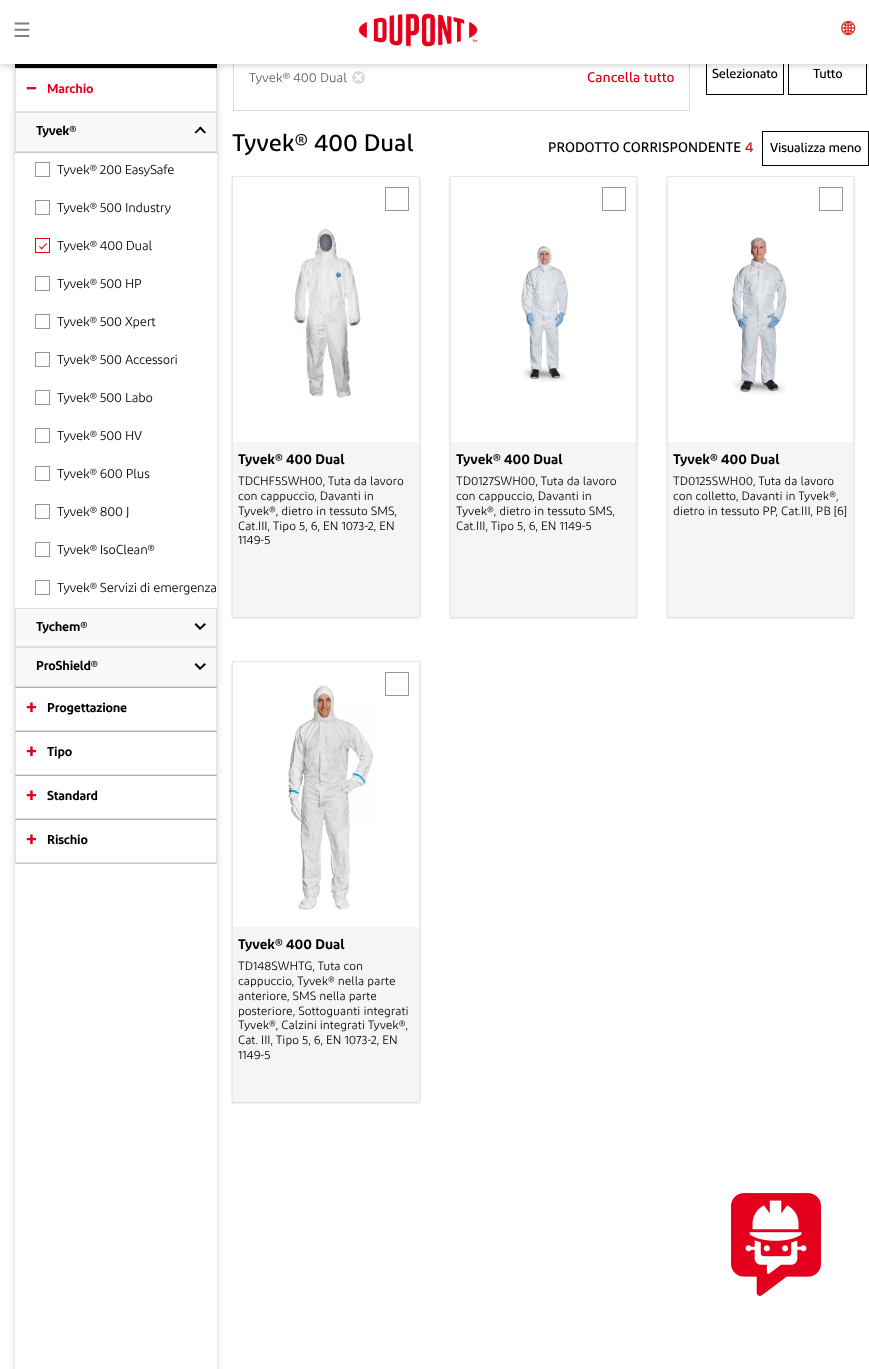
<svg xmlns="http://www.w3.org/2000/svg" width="869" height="1369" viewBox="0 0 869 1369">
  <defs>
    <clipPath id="clip1"><path d="M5 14H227V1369H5ZM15 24H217V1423H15Z" clip-rule="evenodd"/></clipPath>
    <clipPath id="clip2"><path d="M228 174H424V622H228ZM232 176H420V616H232Z" clip-rule="evenodd"/></clipPath>
    <clipPath id="clip3"><path d="M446 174H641V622H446ZM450 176H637V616H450Z" clip-rule="evenodd"/></clipPath>
    <clipPath id="clip4"><path d="M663 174H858V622H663ZM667 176H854V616H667Z" clip-rule="evenodd"/></clipPath>
    <clipPath id="clip5"><path d="M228 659H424V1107H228ZM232 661H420V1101H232Z" clip-rule="evenodd"/></clipPath>
  </defs>
  <rect width="100%" height="100%" fill="rgb(255,255,255)"/>
  <g clip-path="url(#clip1)">
    <rect x="15" y="24" width="202" height="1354" fill="rgba(0,0,0,0.18)" filter="blur(3px)"/>
  </g>
  <rect x="15" y="64" width="202" height="4" fill="rgb(0,0,0)"/>
  <rect x="15.5" y="68.5" width="201" height="43" fill="none" stroke="rgb(227,227,227)"/>
  <rect x="233.5" y="55.5" width="456" height="55" fill="none" stroke="rgb(221,220,220)"/>
  <circle cx="358.5" cy="77.5" r="6.5" fill="rgb(219,219,219)"/>
  <image x="354" y="74" width="9" height="7" href="pic3.png"/>
  <rect x="706.5" y="55.5" width="77" height="39" fill="none" stroke="rgb(0,0,0)"/>
  <rect x="788.5" y="55.5" width="78" height="39" fill="none" stroke="rgb(0,0,0)"/>
  <rect x="0" y="2" width="869" height="64" fill="rgba(0,0,0,0.17)" filter="blur(3px)"/>
  <rect x="0" y="0" width="869" height="64" fill="rgb(255,255,255)"/>
  <text x="13" y="37" font-family="DejaVu Sans" font-size="20" fill="rgb(128,128,128)">☰</text>
  <image x="358" y="13" width="120" height="34" href="pic1.png"/>
  <image x="841" y="20" width="15" height="16" href="pic2.png"/>
  <text x="26" y="95" font-family="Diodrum" font-size="20" font-weight="600" letter-spacing="-0.2" fill="rgb(228,0,28)">−</text>
  <text x="47" y="93" font-family="Diodrum" font-size="13" font-weight="600" letter-spacing="-0.2" fill="rgb(228,0,28)">Marchio</text>
  <rect x="15" y="152" width="202" height="1" fill="rgb(199,199,199)"/>
  <rect x="15.5" y="112.5" width="201" height="39" fill="rgb(249,249,249)" stroke="rgb(222,222,222)"/>
  <text x="36" y="135" font-family="Diodrum" font-size="13" font-weight="600" letter-spacing="-0.2" fill="rgb(0,0,0)">Tyvek®</text>
  <path d="M196 133.5L194.5 132.5L200.5 126.5L201.5 128Z" fill="rgb(0,0,0)"/>
  <path d="M204.5 133.5L199 128L200.5 126.5L206 132.5Z" fill="rgb(0,0,0)"/>
  <rect x="35.5" y="162.5" width="14" height="14" fill="none" stroke="rgb(151,151,151)"/>
  <text x="57" y="174" font-family="Diodrum" font-size="13" letter-spacing="-0.2" fill="rgb(0,0,0)">Tyvek® 200 EasySafe</text>
  <rect x="35.5" y="200.5" width="14" height="14" fill="none" stroke="rgb(151,151,151)"/>
  <text x="57" y="212" font-family="Diodrum" font-size="13" letter-spacing="-0.2" fill="rgb(0,0,0)">Tyvek® 500 Industry</text>
  <rect x="35.5" y="238.5" width="14" height="14" fill="none" stroke="rgb(228,0,28)"/>
  <path d="M46.5 243L47 244L41.5 249.5L41 248.5Z" fill="rgb(228,0,28)"/>
  <path d="M39.5 246L42.5 248.5L41.5 249.5L39 246.5Z" fill="rgb(228,0,28)"/>
  <text x="57" y="250" font-family="Diodrum" font-size="13" letter-spacing="-0.2" fill="rgb(0,0,0)">Tyvek® 400 Dual</text>
  <rect x="35.5" y="276.5" width="14" height="14" fill="none" stroke="rgb(151,151,151)"/>
  <text x="57" y="288" font-family="Diodrum" font-size="13" letter-spacing="-0.2" fill="rgb(0,0,0)">Tyvek® 500 HP</text>
  <rect x="35.5" y="314.5" width="14" height="14" fill="none" stroke="rgb(151,151,151)"/>
  <text x="57" y="326" font-family="Diodrum" font-size="13" letter-spacing="-0.2" fill="rgb(0,0,0)">Tyvek® 500 Xpert</text>
  <rect x="35.5" y="352.5" width="14" height="14" fill="none" stroke="rgb(151,151,151)"/>
  <text x="57" y="364" font-family="Diodrum" font-size="13" letter-spacing="-0.2" fill="rgb(0,0,0)">Tyvek® 500 Accessori</text>
  <rect x="35.5" y="390.5" width="14" height="14" fill="none" stroke="rgb(151,151,151)"/>
  <text x="57" y="402" font-family="Diodrum" font-size="13" letter-spacing="-0.2" fill="rgb(0,0,0)">Tyvek® 500 Labo</text>
  <rect x="35.5" y="428.5" width="14" height="14" fill="none" stroke="rgb(151,151,151)"/>
  <text x="57" y="440" font-family="Diodrum" font-size="13" letter-spacing="-0.2" fill="rgb(0,0,0)">Tyvek® 500 HV</text>
  <rect x="35.5" y="466.5" width="14" height="14" fill="none" stroke="rgb(151,151,151)"/>
  <text x="57" y="478" font-family="Diodrum" font-size="13" letter-spacing="-0.2" fill="rgb(0,0,0)">Tyvek® 600 Plus</text>
  <rect x="35.5" y="504.5" width="14" height="14" fill="none" stroke="rgb(151,151,151)"/>
  <text x="57" y="516" font-family="Diodrum" font-size="13" letter-spacing="-0.2" fill="rgb(0,0,0)">Tyvek® 800 J</text>
  <rect x="35.5" y="542.5" width="14" height="14" fill="none" stroke="rgb(151,151,151)"/>
  <text x="57" y="554" font-family="Diodrum" font-size="13" letter-spacing="-0.2" fill="rgb(0,0,0)">Tyvek® IsoClean®</text>
  <rect x="35.5" y="580.5" width="14" height="14" fill="none" stroke="rgb(151,151,151)"/>
  <text x="57" y="592" font-family="Diodrum" font-size="13" letter-spacing="-0.2" fill="rgb(0,0,0)">Tyvek® Servizi di emergenza</text>
  <rect x="15.5" y="608.5" width="201" height="38" fill="rgb(249,249,249)" stroke="rgb(222,222,222)"/>
  <text x="36" y="631" font-family="Diodrum" font-size="13" font-weight="600" letter-spacing="-0.2" fill="rgb(0,0,0)">Tychem®</text>
  <path d="M204.5 623L206 624.5L200 630L199 628.5Z" fill="rgb(0,0,0)"/>
  <path d="M196 623L201.5 628.5L200 630L194.5 624.5Z" fill="rgb(0,0,0)"/>
  <rect x="15.5" y="687.5" width="201" height="43" fill="none" stroke="rgb(227,227,227)"/>
  <rect x="15" y="687" width="202" height="1" fill="rgb(177,177,177)"/>
  <rect x="15.5" y="647.5" width="201" height="39" fill="rgb(249,249,249)" stroke="rgb(222,222,222)"/>
  <text x="36" y="670" font-family="Diodrum" font-size="13" font-weight="600" letter-spacing="-0.2" fill="rgb(0,0,0)">ProShield®</text>
  <path d="M204.5 663L206 664.5L200 670L199 668.5Z" fill="rgb(0,0,0)"/>
  <path d="M196 663L201.5 668.5L200 670L194.5 664.5Z" fill="rgb(0,0,0)"/>
  <rect x="15" y="731" width="202" height="1" fill="rgb(199,199,199)"/>
  <text x="26" y="714" font-family="Diodrum" font-size="20" font-weight="600" letter-spacing="-0.2" fill="rgb(228,0,28)">+</text>
  <text x="47" y="712" font-family="Diodrum" font-size="13" font-weight="600" letter-spacing="-0.2" fill="rgb(0,0,0)">Progettazione</text>
  <rect x="15" y="775" width="202" height="1" fill="rgb(199,199,199)"/>
  <rect x="15.5" y="731.5" width="201" height="43" fill="none" stroke="rgba(0,0,0,0.11)"/>
  <text x="26" y="758" font-family="Diodrum" font-size="20" font-weight="600" letter-spacing="-0.2" fill="rgb(228,0,28)">+</text>
  <text x="47" y="756" font-family="Diodrum" font-size="13" font-weight="600" letter-spacing="-0.2" fill="rgb(0,0,0)">Tipo</text>
  <rect x="15" y="819" width="202" height="1" fill="rgb(199,199,199)"/>
  <rect x="15.5" y="775.5" width="201" height="43" fill="none" stroke="rgba(0,0,0,0.11)"/>
  <text x="26" y="802" font-family="Diodrum" font-size="20" font-weight="600" letter-spacing="-0.2" fill="rgb(228,0,28)">+</text>
  <text x="47" y="800" font-family="Diodrum" font-size="13" font-weight="600" letter-spacing="-0.2" fill="rgb(0,0,0)">Standard</text>
  <rect x="15" y="863" width="202" height="1" fill="rgb(199,199,199)"/>
  <rect x="15.5" y="819.5" width="201" height="43" fill="none" stroke="rgba(0,0,0,0.11)"/>
  <text x="26" y="846" font-family="Diodrum" font-size="20" font-weight="600" letter-spacing="-0.2" fill="rgb(228,0,28)">+</text>
  <text x="47" y="844" font-family="Diodrum" font-size="13" font-weight="600" letter-spacing="-0.2" fill="rgb(0,0,0)">Rischio</text>
  <text x="249" y="82" font-family="Diodrum" font-size="13" fill="rgb(95,95,95)">Tyvek® 400 Dual</text>
  <text x="587" y="82" font-family="Diodrum" font-size="14" font-weight="500" fill="rgb(228,0,28)">Cancella tutto</text>
  <g font-family="Diodrum" font-size="13" font-weight="500" letter-spacing="-0.2" fill="rgb(0,0,0)">
    <text x="712" y="78">Selezionato</text>
    <text x="813" y="78">Tutto</text>
  </g>
  <text x="232" y="151" font-family="Diodrum" font-size="24" font-weight="500" fill="rgb(0,0,0)">Tyvek® 400 Dual</text>
  <text x="548" y="152" font-family="Diodrum" font-size="14" font-weight="500" fill="rgb(0,0,0)">PRODOTTO CORRISPONDENTE</text>
  <text x="745" y="152" font-family="Diodrum" font-size="14" font-weight="500" fill="rgb(228,0,28)">4</text>
  <rect x="762.5" y="131.5" width="106" height="34" fill="none" stroke="rgb(0,0,0)"/>
  <text x="770" y="152" font-family="Diodrum" font-size="13" font-weight="500" letter-spacing="-0.2" fill="rgb(0,0,0)">Visualizza meno</text>
  <g clip-path="url(#clip2)">
    <rect x="232" y="178" width="188" height="440" fill="rgba(0,0,0,0.18)" filter="blur(1px)"/>
  </g>
  <rect x="232.5" y="176.5" width="187" height="439" fill="none" stroke="rgb(233,233,233)"/>
  <rect x="385.5" y="187.5" width="23" height="23" fill="none" stroke="rgb(151,151,151)"/>
  <image x="294" y="228" width="67" height="170" href="pic4.png"/>
  <rect x="233" y="442" width="186" height="175" fill="rgb(245,245,245)"/>
  <text x="238" y="464" font-family="Diodrum" font-size="14" font-weight="600" fill="rgb(0,0,0)">Tyvek® 400 Dual</text>
  <g font-family="Diodrum" font-size="12" fill="rgb(0,0,0)">
    <text>
      <tspan x="238" y="485">TDCHF5SWH00, Tuta da lavoro</tspan>
      <tspan x="238" y="500">con cappuccio, Davanti in</tspan>
      <tspan x="238" y="515">Tyvek®, dietro in tessuto SMS,</tspan>
      <tspan x="238" y="530">Cat.III, Tipo 5, 6, EN 1073-2, EN</tspan>
      <tspan x="238" y="544">1149-5</tspan>
    </text>
  </g>
  <g clip-path="url(#clip3)">
    <rect x="450" y="178" width="187" height="440" fill="rgba(0,0,0,0.18)" filter="blur(1px)"/>
  </g>
  <rect x="450.5" y="176.5" width="186" height="439" fill="none" stroke="rgb(233,233,233)"/>
  <rect x="602.5" y="187.5" width="23" height="23" fill="none" stroke="rgb(151,151,151)"/>
  <image x="521" y="246" width="47" height="136" href="pic5.png"/>
  <rect x="451" y="442" width="185" height="175" fill="rgb(245,245,245)"/>
  <text x="456" y="464" font-family="Diodrum" font-size="14" font-weight="600" fill="rgb(0,0,0)">Tyvek® 400 Dual</text>
  <g font-family="Diodrum" font-size="12" fill="rgb(0,0,0)">
    <text>
      <tspan x="456" y="485">TD0127SWH00, Tuta da lavoro</tspan>
      <tspan x="456" y="500">con cappuccio, Davanti in</tspan>
      <tspan x="456" y="515">Tyvek®, dietro in tessuto SMS,</tspan>
      <tspan x="456" y="530">Cat.III, Tipo 5, 6, EN 1149-5</tspan>
    </text>
  </g>
  <g clip-path="url(#clip4)">
    <rect x="667" y="178" width="187" height="440" fill="rgba(0,0,0,0.18)" filter="blur(1px)"/>
  </g>
  <rect x="667.5" y="176.5" width="186" height="439" fill="none" stroke="rgb(233,233,233)"/>
  <rect x="819.5" y="187.5" width="23" height="23" fill="none" stroke="rgb(151,151,151)"/>
  <image x="732" y="237" width="55" height="158" href="pic6.png"/>
  <rect x="668" y="442" width="185" height="175" fill="rgb(245,245,245)"/>
  <text x="673" y="464" font-family="Diodrum" font-size="14" font-weight="600" fill="rgb(0,0,0)">Tyvek® 400 Dual</text>
  <g font-family="Diodrum" font-size="12" fill="rgb(0,0,0)">
    <text>
      <tspan x="673" y="485">TD0125SWH00, Tuta da lavoro</tspan>
      <tspan x="673" y="500">con colletto, Davanti in Tyvek®,</tspan>
      <tspan x="673" y="515">dietro in tessuto PP, Cat.III, PB [6]</tspan>
    </text>
  </g>
  <g clip-path="url(#clip5)">
    <rect x="232" y="663" width="188" height="440" fill="rgba(0,0,0,0.18)" filter="blur(1px)"/>
  </g>
  <rect x="232.5" y="661.5" width="187" height="439" fill="none" stroke="rgb(233,233,233)"/>
  <image x="288" y="685" width="86" height="226" href="pic7.png"/>
  <rect x="385.5" y="672.5" width="23" height="23" fill="none" stroke="rgb(151,151,151)"/>
  <rect x="233" y="927" width="186" height="175" fill="rgb(245,245,245)"/>
  <text x="238" y="949" font-family="Diodrum" font-size="14" font-weight="600" fill="rgb(0,0,0)">Tyvek® 400 Dual</text>
  <g font-family="Diodrum" font-size="12" fill="rgb(0,0,0)">
    <text>
      <tspan x="238" y="970">TD148SWHTG, Tuta con</tspan>
      <tspan x="238" y="985">cappuccio, Tyvek® nella parte</tspan>
      <tspan x="238" y="1000">anteriore, SMS nella parte</tspan>
      <tspan x="238" y="1015">posteriore, Sottoguanti integrati</tspan>
      <tspan x="238" y="1029">Tyvek®, Calzini integrati Tyvek®,</tspan>
      <tspan x="238" y="1044">Cat. III, Tipo 5, 6, EN 1073-2, EN</tspan>
      <tspan x="238" y="1059">1149-5</tspan>
    </text>
  </g>
  <image x="731" y="1193" width="90" height="103" href="pic8.png"/>
</svg>
